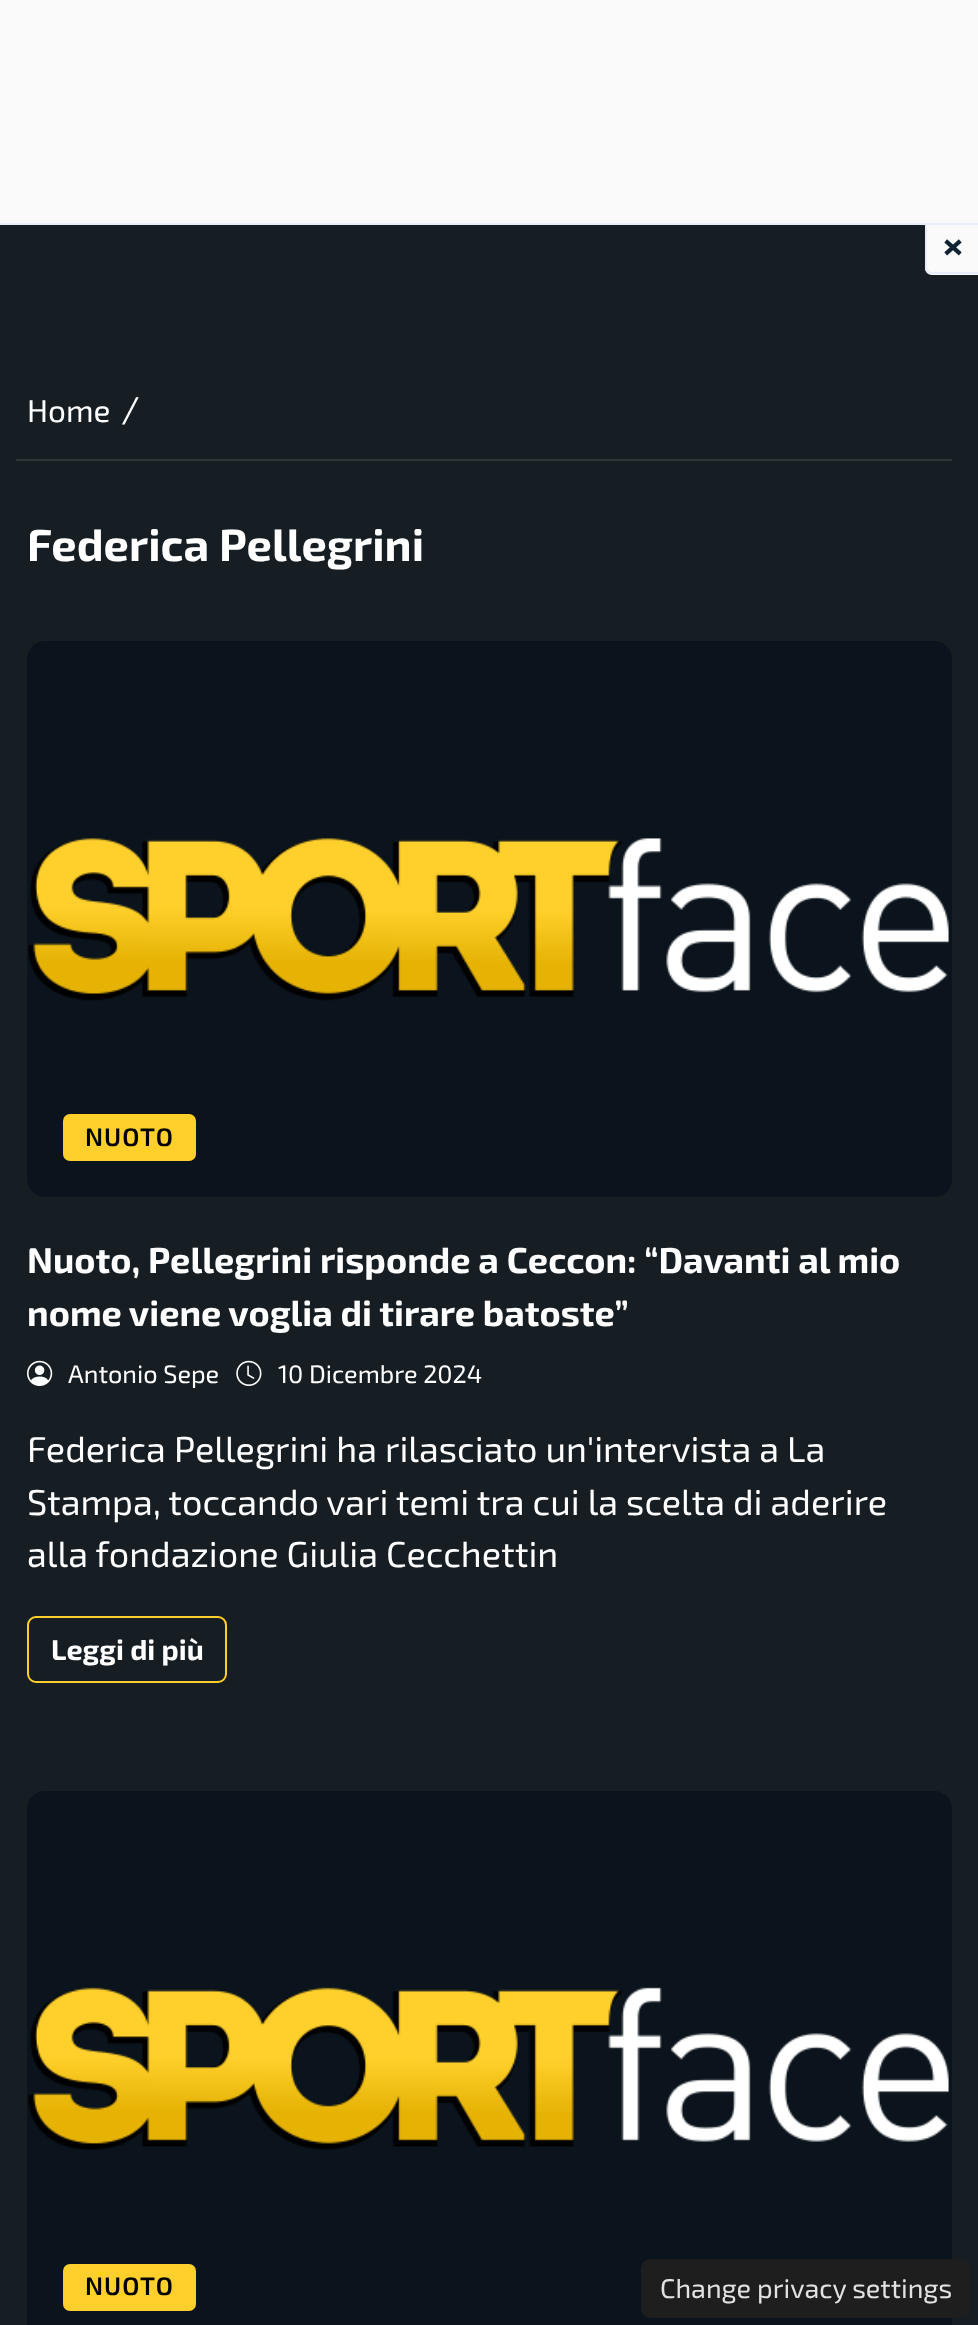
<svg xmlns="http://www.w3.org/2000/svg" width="978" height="2325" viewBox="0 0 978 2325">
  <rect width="100%" height="100%" fill="rgb(23,30,35)"/>
  <path d="M925 221H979V275H932C928 275 925 272 925 268Z" fill="rgb(250,250,250)"/>
  <path d="M925 220H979V274H932C928 274 925 271 925 268ZM927 220H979V272H932C929 272 927 270 927 268Z" fill="rgb(232,238,249)" fill-rule="evenodd"/>
  <rect x="0" y="0" width="978" height="223" fill="rgb(250,250,250)"/>
  <rect x="0" y="223" width="978" height="2" fill="rgb(232,238,249)"/>
  <text x="943" y="259" font-family="'Exo 2'" font-size="40" font-weight="bold" fill="rgb(17,34,51)">×</text>
  <rect x="16" y="459" width="936" height="2" fill="rgb(46,53,57)"/>
  <text x="27" y="422" font-family="'Exo 2'" font-size="31.5" fill="rgb(255,255,255)">Home</text>
  <text x="121" y="422" font-family="'Exo 2'" font-size="36" fill="rgb(255,255,255)">/</text>
  <text x="27" y="561" font-family="'Exo 2'" font-size="45" font-weight="bold" fill="rgb(255,255,255)">Federica Pellegrini</text>
  <rect x="27" y="641" width="925" height="556" rx="18" fill="rgb(11,20,28)"/>
  <image x="28" y="838" width="921" height="163" href="pic1.png"/>
  <rect x="63" y="1114" width="133" height="47" rx="7" fill="rgb(255,208,43)"/>
  <text x="85" y="1146" font-family="'Exo 2'" font-size="25.25" font-weight="600" letter-spacing="1" fill="rgb(0,0,0)">NUOTO</text>
  <g font-family="'Exo 2'" font-size="36" font-weight="bold" fill="rgb(255,255,255)">
    <text>
      <tspan x="27" y="1273">Nuoto, Pellegrini risponde a Ceccon: “Davanti al mio</tspan>
      <tspan x="27" y="1326">nome viene voglia di tirare batoste”</tspan>
    </text>
  </g>
  <image x="27" y="1360" width="26" height="26" href="pic2.png"/>
  <text x="68" y="1383" font-family="'Exo 2'" font-size="25.25" fill="rgb(255,255,255)">Antonio Sepe</text>
  <image x="236" y="1360" width="26" height="26" href="pic3.png"/>
  <text x="278" y="1383" font-family="'Exo 2'" font-size="25.25" fill="rgb(255,255,255)">10 Dicembre 2024</text>
  <g font-family="'Exo 2'" font-size="36" fill="rgb(255,255,255)">
    <text>
      <tspan x="27" y="1462">Federica Pellegrini ha rilasciato un'intervista a La</tspan>
      <tspan x="27" y="1515">Stampa, toccando vari temi tra cui la scelta di aderire</tspan>
      <tspan x="27" y="1567">alla fondazione Giulia Cecchettin</tspan>
    </text>
  </g>
  <rect x="28" y="1617" width="198" height="65" rx="8" fill="none" stroke="rgb(255,208,43)" stroke-width="2"/>
  <text x="51" y="1660" font-family="'Exo 2'" font-size="28.75" font-weight="bold" fill="rgb(255,255,255)">Leggi di più</text>
  <rect x="27" y="1791" width="925" height="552" rx="18" fill="rgb(11,20,28)"/>
  <image x="28" y="1987" width="921" height="163" href="pic4.png"/>
  <rect x="63" y="2264" width="133" height="47" rx="7" fill="rgb(255,208,43)"/>
  <text x="85" y="2295" font-family="'Exo 2'" font-size="25.25" font-weight="600" letter-spacing="1" fill="rgb(0,0,0)">NUOTO</text>
  <rect x="641" y="2259" width="329" height="59" rx="9" fill="rgb(30,30,30)"/>
  <text x="660" y="2298" font-family="'Exo 2'" font-size="27" fill="rgb(227,225,225)">Change privacy settings</text>
</svg>
